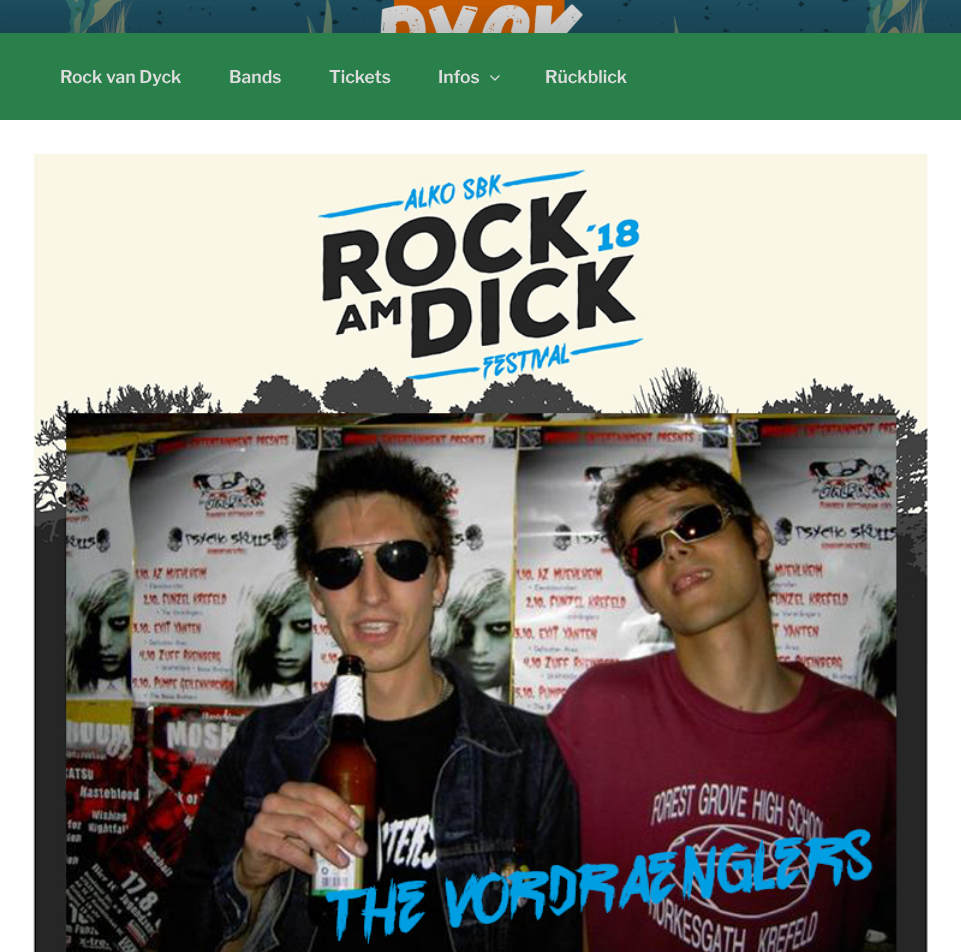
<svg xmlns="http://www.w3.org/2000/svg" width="961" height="952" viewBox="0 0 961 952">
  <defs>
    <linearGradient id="g1" gradientUnits="userSpaceOnUse" x1="481" y1="0" x2="481" y2="120"><stop offset="0" stop-color="rgb(0,0,0)" stop-opacity="0"/><stop offset="0.75" stop-color="rgb(0,0,0)" stop-opacity="0.3"/><stop offset="1" stop-color="rgb(0,0,0)" stop-opacity="0.3"/></linearGradient>
  </defs>
  <rect width="100%" height="100%" fill="rgb(255,255,255)"/>
  <image x="0" y="0" width="961" height="33" href="pic1.png"/>
  <rect x="0" y="6" width="961" height="27" fill="url(#g1)"/>
  <rect x="0" y="33" width="961" height="87" fill="rgb(41,128,75)"/>
  <g font-family="Libre Franklin" font-size="17.5" font-weight="100" fill="rgb(221,221,221)">
    <text x="60" y="83">Rock van Dyck</text>
    <text x="229" y="83">Bands</text>
    <text x="329" y="83">Tickets</text>
    <text x="438" y="83">Infos</text>
  </g>
  <image x="490" y="75" width="10" height="6" href="pic2.png"/>
  <text x="545" y="83" font-family="Libre Franklin" font-size="17.5" font-weight="100" fill="rgb(221,221,221)">Rückblick</text>
  <image x="0" y="120" width="961" height="832" href="pic3.png"/>
</svg>
